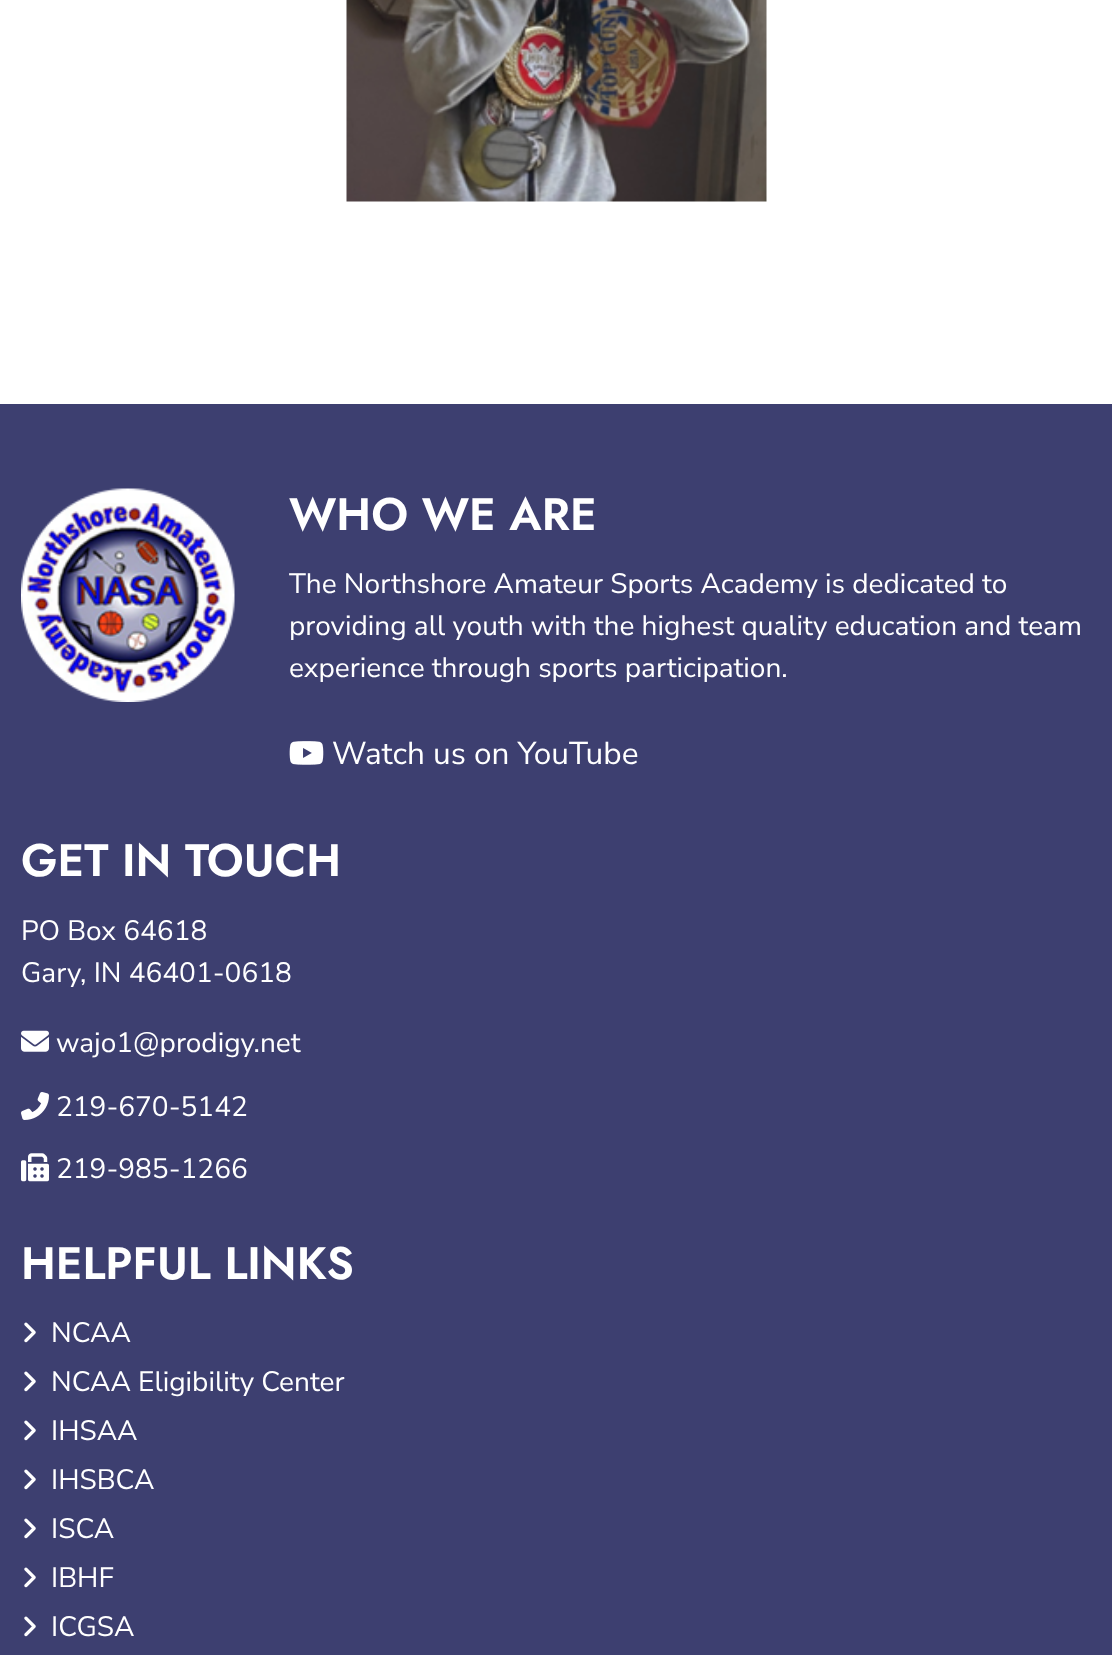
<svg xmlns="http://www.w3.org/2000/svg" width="1112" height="1655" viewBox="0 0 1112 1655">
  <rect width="100%" height="100%" fill="rgb(255,255,255)"/>
  <image x="346" y="0" width="421" height="202" href="pic1.png"/>
  <rect x="0" y="404" width="1112" height="1251" fill="rgb(61,63,112)"/>
  <image x="21" y="488" width="214" height="214" href="pic2.png"/>
  <text x="289" y="530" font-family="Jost" font-size="45.5" font-weight="600" fill="rgb(255,255,255)">WHO WE ARE</text>
  <g font-family="Nunito Sans" font-size="28" fill="rgb(255,255,255)">
    <text>
      <tspan x="289" y="593">The Northshore Amateur Sports Academy is dedicated to</tspan>
      <tspan x="289" y="635">providing all youth with the highest quality education and team</tspan>
      <tspan x="289" y="677">experience through sports participation.</tspan>
    </text>
  </g>
  <image x="289" y="741" width="35" height="24" href="pic3.png"/>
  <text x="332" y="764" font-family="Nunito Sans" font-size="31.5" fill="rgb(255,255,255)">Watch us on YouTube</text>
  <text x="21" y="876" font-family="Jost" font-size="45.5" font-weight="600" fill="rgb(255,255,255)">GET IN TOUCH</text>
  <g font-family="Nunito Sans" font-size="28" fill="rgb(255,255,255)">
    <text>
      <tspan x="21" y="940">PO Box 64618</tspan>
      <tspan x="21" y="982">Gary, IN 46401-0618</tspan>
    </text>
  </g>
  <image x="21" y="1030" width="28" height="22" href="pic4.png"/>
  <text x="56" y="1052" font-family="Nunito Sans" font-size="28" fill="rgb(255,255,255)">wajo1@prodigy.net</text>
  <image x="21" y="1092" width="28" height="28" href="pic5.png"/>
  <text x="56" y="1116" font-family="Nunito Sans" font-size="28" fill="rgb(255,255,255)">219-670-5142</text>
  <image x="21" y="1153" width="28" height="29" href="pic6.png"/>
  <text x="56" y="1178" font-family="Nunito Sans" font-size="28" fill="rgb(255,255,255)">219-985-1266</text>
  <text x="21" y="1279" font-family="Jost" font-size="45.5" font-weight="600" fill="rgb(255,255,255)">HELPFUL LINKS</text>
  <image x="24" y="1322" width="12" height="21" href="pic7.png"/>
  <text x="51" y="1342" font-family="Nunito Sans" font-size="28" fill="rgb(255,255,255)">NCAA</text>
  <image x="24" y="1371" width="12" height="21" href="pic7.png"/>
  <text x="51" y="1391" font-family="Nunito Sans" font-size="28" fill="rgb(255,255,255)">NCAA Eligibility Center</text>
  <image x="24" y="1420" width="12" height="21" href="pic7.png"/>
  <text x="51" y="1440" font-family="Nunito Sans" font-size="28" fill="rgb(255,255,255)">IHSAA</text>
  <image x="24" y="1469" width="12" height="21" href="pic7.png"/>
  <text x="51" y="1489" font-family="Nunito Sans" font-size="28" fill="rgb(255,255,255)">IHSBCA</text>
  <image x="24" y="1518" width="12" height="21" href="pic7.png"/>
  <text x="51" y="1538" font-family="Nunito Sans" font-size="28" fill="rgb(255,255,255)">ISCA</text>
  <image x="24" y="1567" width="12" height="21" href="pic7.png"/>
  <text x="51" y="1587" font-family="Nunito Sans" font-size="28" fill="rgb(255,255,255)">IBHF</text>
  <image x="24" y="1616" width="12" height="21" href="pic7.png"/>
  <text x="51" y="1636" font-family="Nunito Sans" font-size="28" fill="rgb(255,255,255)">ICGSA</text>
</svg>
